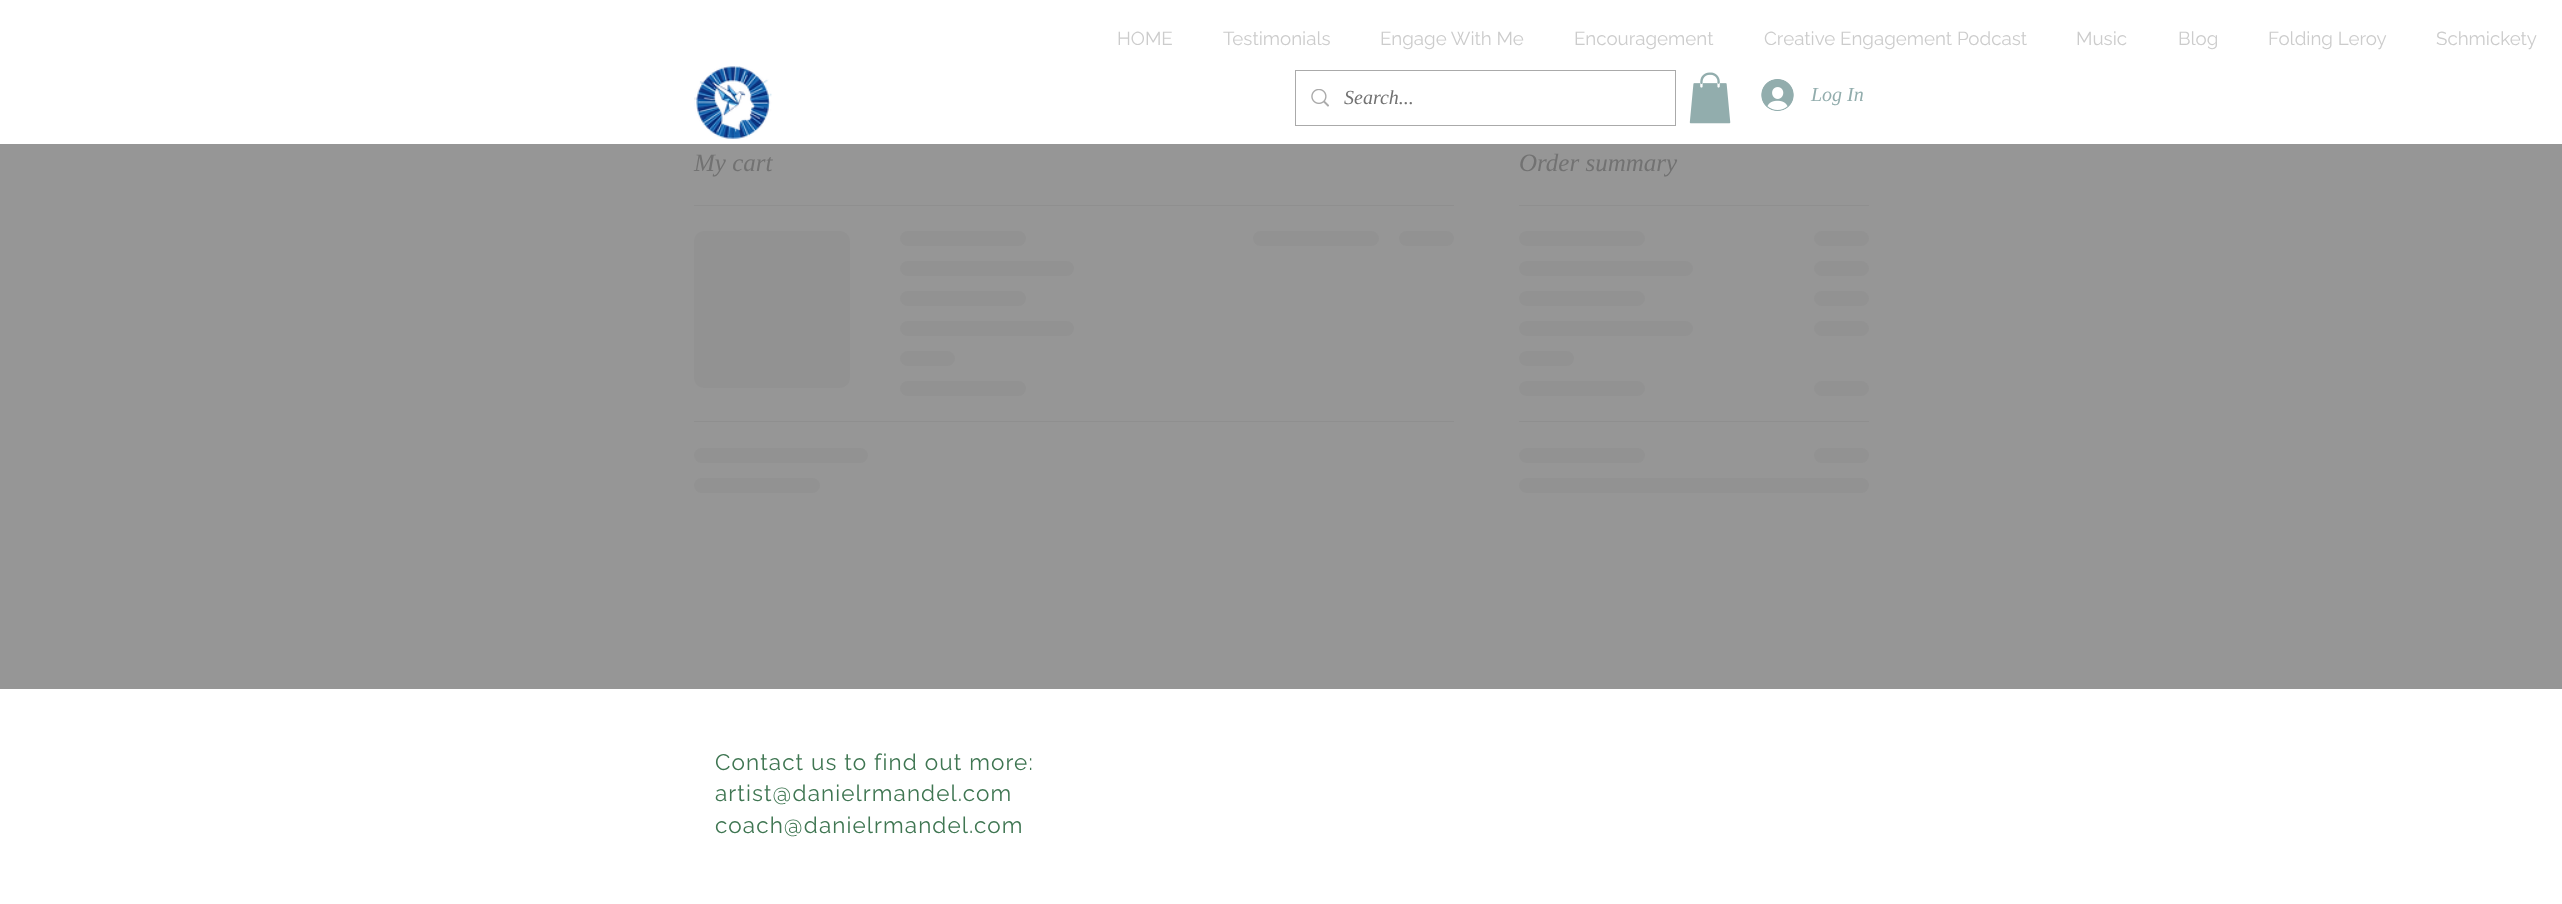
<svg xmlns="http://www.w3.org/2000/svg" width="2562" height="904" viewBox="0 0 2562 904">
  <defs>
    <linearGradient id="g1" gradientUnits="userSpaceOnUse" x1="694" y1="309" x2="1319" y2="309"><stop offset="0.25" stop-color="rgb(146,146,146)"/><stop offset="0.37" stop-color="rgb(143,143,143)"/><stop offset="0.63" stop-color="rgb(146,146,146)"/></linearGradient>
    <linearGradient id="g2" gradientUnits="userSpaceOnUse" x1="900" y1="239" x2="1405" y2="239"><stop offset="0.25" stop-color="rgb(146,146,146)"/><stop offset="0.37" stop-color="rgb(143,143,143)"/><stop offset="0.63" stop-color="rgb(146,146,146)"/></linearGradient>
    <linearGradient id="g3" gradientUnits="userSpaceOnUse" x1="900" y1="269" x2="1595" y2="269"><stop offset="0.25" stop-color="rgb(146,146,146)"/><stop offset="0.37" stop-color="rgb(143,143,143)"/><stop offset="0.63" stop-color="rgb(146,146,146)"/></linearGradient>
    <linearGradient id="g4" gradientUnits="userSpaceOnUse" x1="900" y1="299" x2="1405" y2="299"><stop offset="0.25" stop-color="rgb(146,146,146)"/><stop offset="0.37" stop-color="rgb(143,143,143)"/><stop offset="0.63" stop-color="rgb(146,146,146)"/></linearGradient>
    <linearGradient id="g5" gradientUnits="userSpaceOnUse" x1="900" y1="329" x2="1595" y2="329"><stop offset="0.25" stop-color="rgb(146,146,146)"/><stop offset="0.37" stop-color="rgb(143,143,143)"/><stop offset="0.63" stop-color="rgb(146,146,146)"/></linearGradient>
    <linearGradient id="g6" gradientUnits="userSpaceOnUse" x1="900" y1="359" x2="1120" y2="359"><stop offset="0.25" stop-color="rgb(146,146,146)"/><stop offset="0.37" stop-color="rgb(143,143,143)"/><stop offset="0.63" stop-color="rgb(146,146,146)"/></linearGradient>
    <linearGradient id="g7" gradientUnits="userSpaceOnUse" x1="900" y1="389" x2="1405" y2="389"><stop offset="0.25" stop-color="rgb(146,146,146)"/><stop offset="0.37" stop-color="rgb(143,143,143)"/><stop offset="0.63" stop-color="rgb(146,146,146)"/></linearGradient>
    <linearGradient id="g8" gradientUnits="userSpaceOnUse" x1="1253" y1="239" x2="1758" y2="239"><stop offset="0.25" stop-color="rgb(146,146,146)"/><stop offset="0.37" stop-color="rgb(143,143,143)"/><stop offset="0.63" stop-color="rgb(146,146,146)"/></linearGradient>
    <linearGradient id="g9" gradientUnits="userSpaceOnUse" x1="1399" y1="239" x2="1619" y2="239"><stop offset="0.25" stop-color="rgb(146,146,146)"/><stop offset="0.37" stop-color="rgb(143,143,143)"/><stop offset="0.63" stop-color="rgb(146,146,146)"/></linearGradient>
    <linearGradient id="g10" gradientUnits="userSpaceOnUse" x1="694" y1="455" x2="1389" y2="455"><stop offset="0.25" stop-color="rgb(146,146,146)"/><stop offset="0.37" stop-color="rgb(143,143,143)"/><stop offset="0.63" stop-color="rgb(146,146,146)"/></linearGradient>
    <linearGradient id="g11" gradientUnits="userSpaceOnUse" x1="694" y1="485" x2="1199" y2="485"><stop offset="0.25" stop-color="rgb(146,146,146)"/><stop offset="0.37" stop-color="rgb(143,143,143)"/><stop offset="0.63" stop-color="rgb(146,146,146)"/></linearGradient>
    <linearGradient id="g12" gradientUnits="userSpaceOnUse" x1="1519" y1="239" x2="2024" y2="239"><stop offset="0.25" stop-color="rgb(146,146,146)"/><stop offset="0.37" stop-color="rgb(143,143,143)"/><stop offset="0.63" stop-color="rgb(146,146,146)"/></linearGradient>
    <linearGradient id="g13" gradientUnits="userSpaceOnUse" x1="1814" y1="239" x2="2034" y2="239"><stop offset="0.25" stop-color="rgb(146,146,146)"/><stop offset="0.37" stop-color="rgb(143,143,143)"/><stop offset="0.63" stop-color="rgb(146,146,146)"/></linearGradient>
    <linearGradient id="g14" gradientUnits="userSpaceOnUse" x1="1519" y1="269" x2="2214" y2="269"><stop offset="0.25" stop-color="rgb(146,146,146)"/><stop offset="0.37" stop-color="rgb(143,143,143)"/><stop offset="0.63" stop-color="rgb(146,146,146)"/></linearGradient>
    <linearGradient id="g15" gradientUnits="userSpaceOnUse" x1="1814" y1="269" x2="2034" y2="269"><stop offset="0.25" stop-color="rgb(146,146,146)"/><stop offset="0.37" stop-color="rgb(143,143,143)"/><stop offset="0.63" stop-color="rgb(146,146,146)"/></linearGradient>
    <linearGradient id="g16" gradientUnits="userSpaceOnUse" x1="1519" y1="299" x2="2024" y2="299"><stop offset="0.25" stop-color="rgb(146,146,146)"/><stop offset="0.37" stop-color="rgb(143,143,143)"/><stop offset="0.63" stop-color="rgb(146,146,146)"/></linearGradient>
    <linearGradient id="g17" gradientUnits="userSpaceOnUse" x1="1814" y1="299" x2="2034" y2="299"><stop offset="0.25" stop-color="rgb(146,146,146)"/><stop offset="0.37" stop-color="rgb(143,143,143)"/><stop offset="0.63" stop-color="rgb(146,146,146)"/></linearGradient>
    <linearGradient id="g18" gradientUnits="userSpaceOnUse" x1="1519" y1="329" x2="2214" y2="329"><stop offset="0.25" stop-color="rgb(146,146,146)"/><stop offset="0.37" stop-color="rgb(143,143,143)"/><stop offset="0.63" stop-color="rgb(146,146,146)"/></linearGradient>
    <linearGradient id="g19" gradientUnits="userSpaceOnUse" x1="1814" y1="329" x2="2034" y2="329"><stop offset="0.25" stop-color="rgb(146,146,146)"/><stop offset="0.37" stop-color="rgb(143,143,143)"/><stop offset="0.63" stop-color="rgb(146,146,146)"/></linearGradient>
    <linearGradient id="g20" gradientUnits="userSpaceOnUse" x1="1519" y1="359" x2="1739" y2="359"><stop offset="0.25" stop-color="rgb(146,146,146)"/><stop offset="0.37" stop-color="rgb(143,143,143)"/><stop offset="0.63" stop-color="rgb(146,146,146)"/></linearGradient>
    <linearGradient id="g21" gradientUnits="userSpaceOnUse" x1="1519" y1="389" x2="2024" y2="389"><stop offset="0.25" stop-color="rgb(146,146,146)"/><stop offset="0.37" stop-color="rgb(143,143,143)"/><stop offset="0.63" stop-color="rgb(146,146,146)"/></linearGradient>
    <linearGradient id="g22" gradientUnits="userSpaceOnUse" x1="1814" y1="389" x2="2034" y2="389"><stop offset="0.25" stop-color="rgb(146,146,146)"/><stop offset="0.37" stop-color="rgb(143,143,143)"/><stop offset="0.63" stop-color="rgb(146,146,146)"/></linearGradient>
    <linearGradient id="g23" gradientUnits="userSpaceOnUse" x1="1519" y1="455" x2="2024" y2="455"><stop offset="0.25" stop-color="rgb(146,146,146)"/><stop offset="0.37" stop-color="rgb(143,143,143)"/><stop offset="0.63" stop-color="rgb(146,146,146)"/></linearGradient>
    <linearGradient id="g24" gradientUnits="userSpaceOnUse" x1="1814" y1="455" x2="2034" y2="455"><stop offset="0.25" stop-color="rgb(146,146,146)"/><stop offset="0.37" stop-color="rgb(143,143,143)"/><stop offset="0.63" stop-color="rgb(146,146,146)"/></linearGradient>
    <linearGradient id="g25" gradientUnits="userSpaceOnUse" x1="1519" y1="485" x2="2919" y2="485"><stop offset="0.25" stop-color="rgb(146,146,146)"/><stop offset="0.37" stop-color="rgb(143,143,143)"/><stop offset="0.63" stop-color="rgb(146,146,146)"/></linearGradient>
  </defs>
  <rect width="100%" height="100%" fill="rgb(150,150,150)"/>
  <rect x="0" y="0" width="2562" height="144" fill="rgb(255,255,255)"/>
  <g font-family="Raleway" font-size="18.75" fill="rgb(204,204,204)">
    <text x="1117" y="45">HOME</text>
    <text x="1223" y="45">Testimonials</text>
    <text x="1380" y="45">Engage With Me</text>
    <text x="1574" y="45">Encouragement</text>
    <text x="1764" y="45">Creative Engagement Podcast</text>
    <text x="2076" y="45">Music</text>
    <text x="2178" y="45">Blog</text>
    <text x="2268" y="45">Folding Leroy</text>
    <text x="2436" y="45">Schmickety</text>
  </g>
  <image x="694" y="66" width="78" height="73" href="pic1.png"/>
  <rect x="1295.5" y="70.5" width="380" height="55" fill="none" stroke="rgb(170,170,170)"/>
  <image x="1311" y="89" width="18" height="18" href="pic2.png"/>
  <text x="1344" y="104" font-family="Liberation Serif" font-size="20" font-style="italic" fill="rgb(114,114,114)">Search...</text>
  <image x="1689" y="72" width="42" height="52" href="pic3.png"/>
  <image x="1761" y="79" width="33" height="32" href="pic4.png"/>
  <text x="1811" y="101" font-family="Liberation Serif" font-size="20" font-style="italic" fill="rgb(146,173,173)">Log In</text>
  <rect x="694" y="205" width="760" height="1" fill="rgb(143,143,143)"/>
  <text x="694" y="171" font-family="Liberation Serif" font-size="25" font-style="italic" fill="rgb(114,114,114)">My cart</text>
  <rect x="694" y="231" width="156" height="157" rx="10" fill="url(#g1)"/>
  <rect x="900" y="231" width="126" height="15" rx="7.5" fill="url(#g2)"/>
  <rect x="900" y="261" width="174" height="15" rx="7.5" fill="url(#g3)"/>
  <rect x="900" y="291" width="126" height="15" rx="7.5" fill="url(#g4)"/>
  <rect x="900" y="321" width="174" height="15" rx="7.5" fill="url(#g5)"/>
  <rect x="900" y="351" width="55" height="15" rx="7.5" fill="url(#g6)"/>
  <rect x="900" y="381" width="126" height="15" rx="7.5" fill="url(#g7)"/>
  <rect x="1253" y="231" width="126" height="15" rx="7.5" fill="url(#g8)"/>
  <rect x="1399" y="231" width="55" height="15" rx="7.5" fill="url(#g9)"/>
  <rect x="694" y="421" width="760" height="1" fill="rgb(143,143,143)"/>
  <rect x="694" y="448" width="174" height="15" rx="7.5" fill="url(#g10)"/>
  <rect x="694" y="478" width="126" height="15" rx="7.5" fill="url(#g11)"/>
  <rect x="1519" y="205" width="350" height="1" fill="rgb(143,143,143)"/>
  <text x="1519" y="171" font-family="Liberation Serif" font-size="25" font-style="italic" fill="rgb(114,114,114)">Order summary</text>
  <rect x="1519" y="231" width="126" height="15" rx="7.5" fill="url(#g12)"/>
  <rect x="1814" y="231" width="55" height="15" rx="7.5" fill="url(#g13)"/>
  <rect x="1519" y="261" width="174" height="15" rx="7.5" fill="url(#g14)"/>
  <rect x="1814" y="261" width="55" height="15" rx="7.5" fill="url(#g15)"/>
  <rect x="1519" y="291" width="126" height="15" rx="7.5" fill="url(#g16)"/>
  <rect x="1814" y="291" width="55" height="15" rx="7.5" fill="url(#g17)"/>
  <rect x="1519" y="321" width="174" height="15" rx="7.5" fill="url(#g18)"/>
  <rect x="1814" y="321" width="55" height="15" rx="7.5" fill="url(#g19)"/>
  <rect x="1519" y="351" width="55" height="15" rx="7.5" fill="url(#g20)"/>
  <rect x="1519" y="381" width="126" height="15" rx="7.5" fill="url(#g21)"/>
  <rect x="1814" y="381" width="55" height="15" rx="7.5" fill="url(#g22)"/>
  <rect x="1519" y="421" width="350" height="1" fill="rgb(143,143,143)"/>
  <rect x="1519" y="448" width="126" height="15" rx="7.5" fill="url(#g23)"/>
  <rect x="1814" y="448" width="55" height="15" rx="7.5" fill="url(#g24)"/>
  <rect x="1519" y="478" width="350" height="15" rx="7.5" fill="url(#g25)"/>
  <rect x="0" y="689" width="2562" height="215" fill="rgb(255,255,255)"/>
  <g font-family="Raleway" font-size="22.5" letter-spacing="1.1" fill="rgb(63,118,82)">
    <text>
      <tspan x="715" y="770">Contact us to find out more:</tspan>
      <tspan x="715" y="801">artist@danielrmandel.com</tspan>
      <tspan x="715" y="833">coach@danielrmandel.com</tspan>
    </text>
  </g>
</svg>
